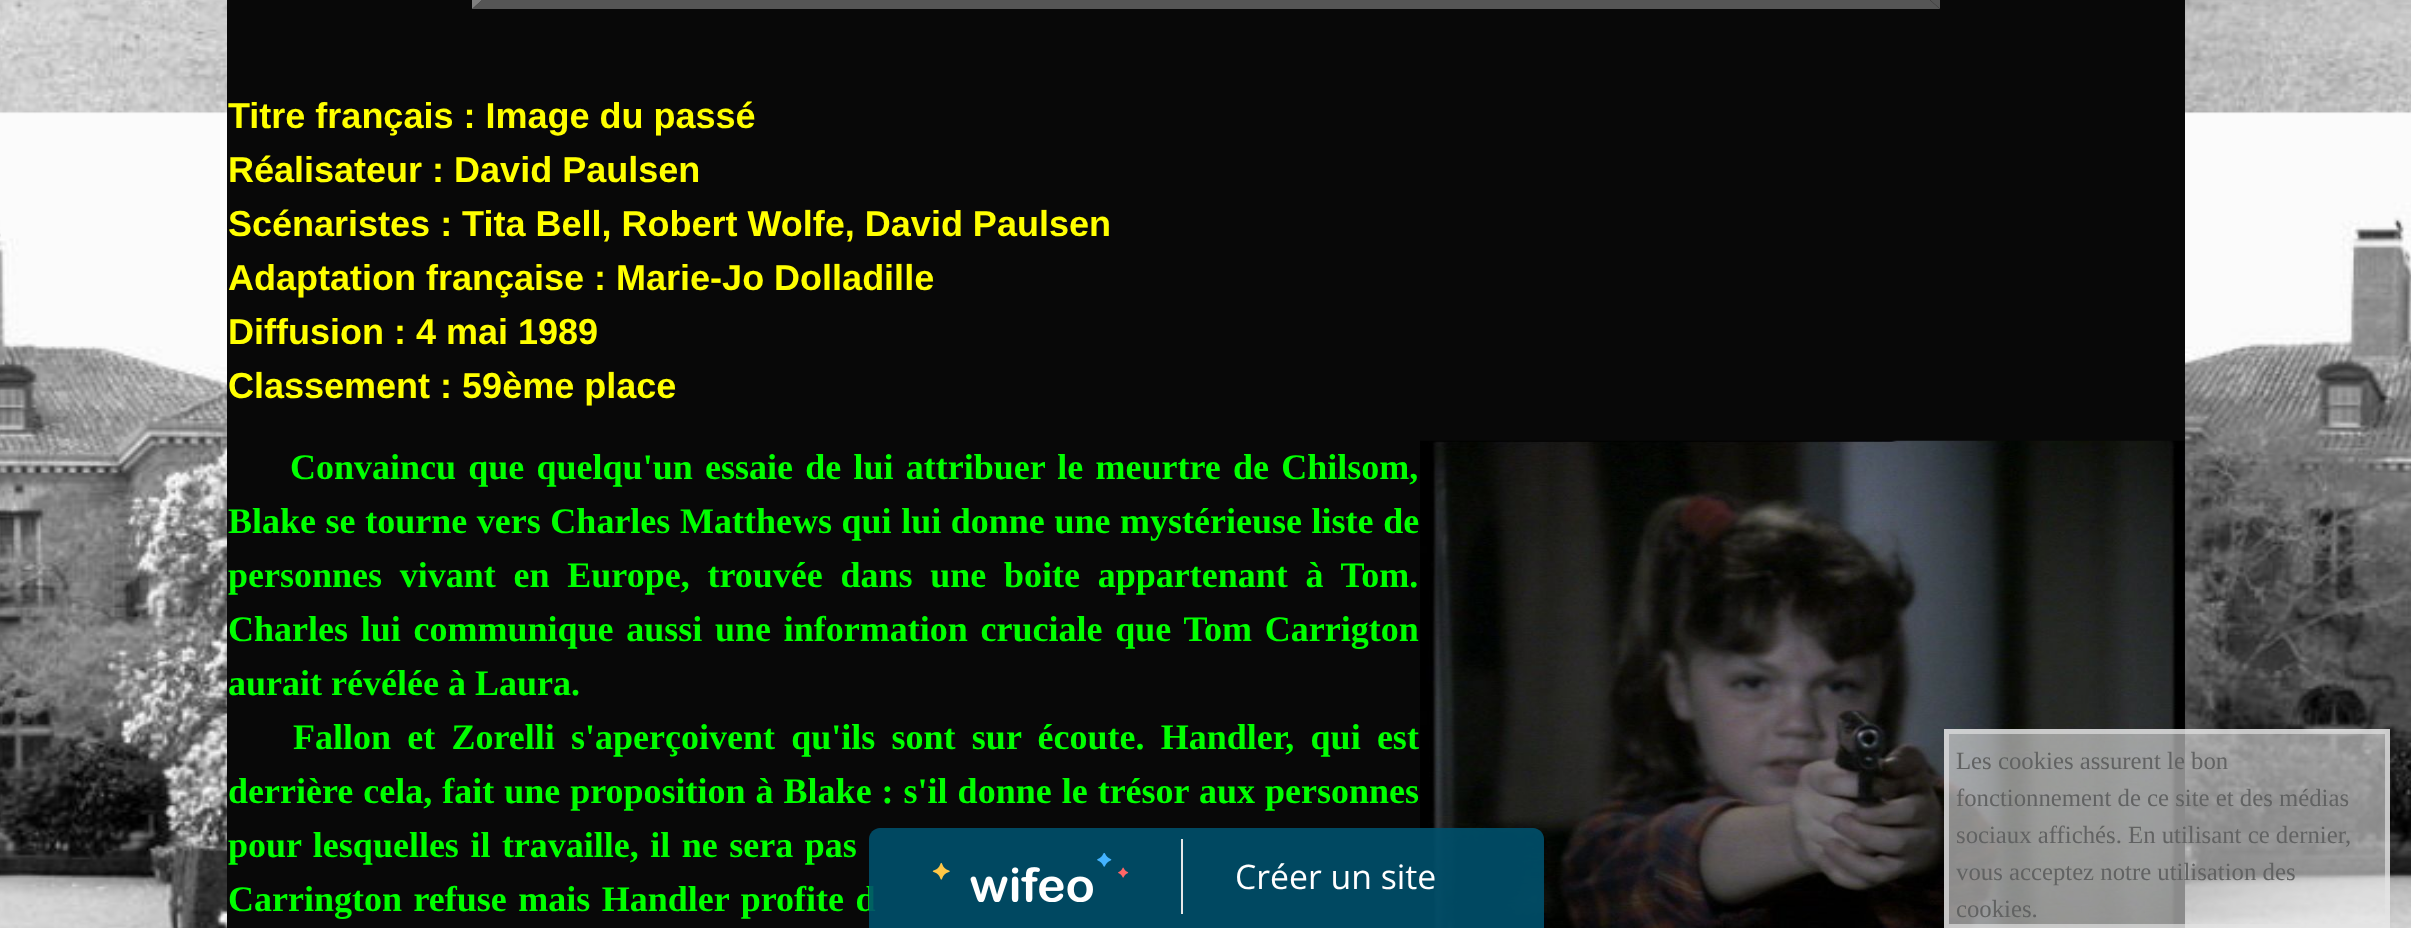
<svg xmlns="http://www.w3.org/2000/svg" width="2411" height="928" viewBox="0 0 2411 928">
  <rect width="100%" height="100%" fill="rgb(255,255,255)"/>
  <image x="0" y="0" width="2411" height="928" href="pic1.png"/>
  <rect x="227" y="0" width="1958" height="928" fill="rgb(8,8,8)"/>
  <path d="M1940-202V9L1930 0V-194Z" fill="rgb(85,85,85)"/>
  <path d="M1940 9H472L482 0H1930Z" fill="rgb(85,85,85)"/>
  <path d="M472 9V-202L482-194V0Z" fill="rgb(128,128,128)"/>
  <g font-family="Liberation Sans" font-size="36" font-weight="bold" fill="rgb(255,255,0)">
    <text>
      <tspan x="228" y="128">Titre français : Image du passé</tspan>
      <tspan x="228" y="182">Réalisateur : David Paulsen</tspan>
      <tspan x="228" y="236">Scénaristes : Tita Bell, Robert Wolfe, David Paulsen</tspan>
      <tspan x="228" y="290">Adaptation française : Marie-Jo Dolladille</tspan>
      <tspan x="228" y="344">Diffusion : 4 mai 1989</tspan>
      <tspan x="228" y="398">Classement : 59ème place</tspan>
    </text>
  </g>
  <text x="290" y="479" word-spacing="3.25" font-family="Liberation Serif" font-size="36" font-weight="bold" fill="rgb(0,255,0)">Convaincu que quelqu'un essaie de lui attribuer le meurtre de Chilsom,</text>
  <image x="1420" y="440" width="765" height="488" href="pic2.png"/>
  <g font-family="Liberation Serif" font-size="36" font-weight="bold" fill="rgb(0,255,0)">
    <text>
      <tspan x="228" y="533" word-spacing="0.6">Blake se tourne vers Charles Matthews qui lui donne une mystérieuse liste de</tspan>
      <tspan x="228" y="587" word-spacing="8.75">personnes vivant en Europe, trouvée dans une boite appartenant à Tom.</tspan>
      <tspan x="228" y="641" word-spacing="3.75">Charles lui communique aussi une information cruciale que Tom Carrigton</tspan>
      <tspan x="228" y="695">aurait révélée à Laura.</tspan>
    </text>
    <text x="293" y="749" word-spacing="7.25">Fallon et Zorelli s'aperçoivent qu'ils sont sur écoute. Handler, qui est</text>
    <text>
      <tspan x="228" y="803" word-spacing="1">derrière cela, fait une proposition à Blake : s'il donne le trésor aux personnes</tspan>
      <tspan x="228" y="857" word-spacing="2.5">pour lesquelles il travaille, il ne sera pas</tspan>
      <tspan x="228" y="911" word-spacing="2.5">Carrington refuse mais Handler profite d</tspan>
    </text>
  </g>
  <rect x="1944" y="729" width="446" height="199" fill="rgba(247,247,247,0.56)"/>
  <rect x="1946.5" y="731.5" width="441" height="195" fill="none" stroke="rgba(227,227,227,0.66)" stroke-width="5"/>
  <g font-family="Liberation Serif" font-size="24.75" fill="rgb(97,98,98)">
    <text>
      <tspan x="1956" y="769">Les cookies assurent le bon</tspan>
      <tspan x="1956" y="806">fonctionnement de ce site et des médias</tspan>
      <tspan x="1956" y="843">sociaux affichés. En utilisant ce dernier,</tspan>
      <tspan x="1956" y="880">vous acceptez notre utilisation des</tspan>
      <tspan x="1956" y="917">cookies.</tspan>
    </text>
  </g>
  <path d="M880 828H1533C1539 828 1544 833 1544 839V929H869V839C869 833 874 828 880 828Z" fill="rgba(0,80,107,0.9)"/>
  <rect x="1181" y="839" width="2" height="75" fill="rgb(231,231,231)"/>
  <image x="932" y="853" width="197" height="49" href="pic3.png"/>
  <text x="1235" y="889" font-family="Open Sans" font-size="33.75" fill="rgb(255,255,255)">Créer un site</text>
</svg>
